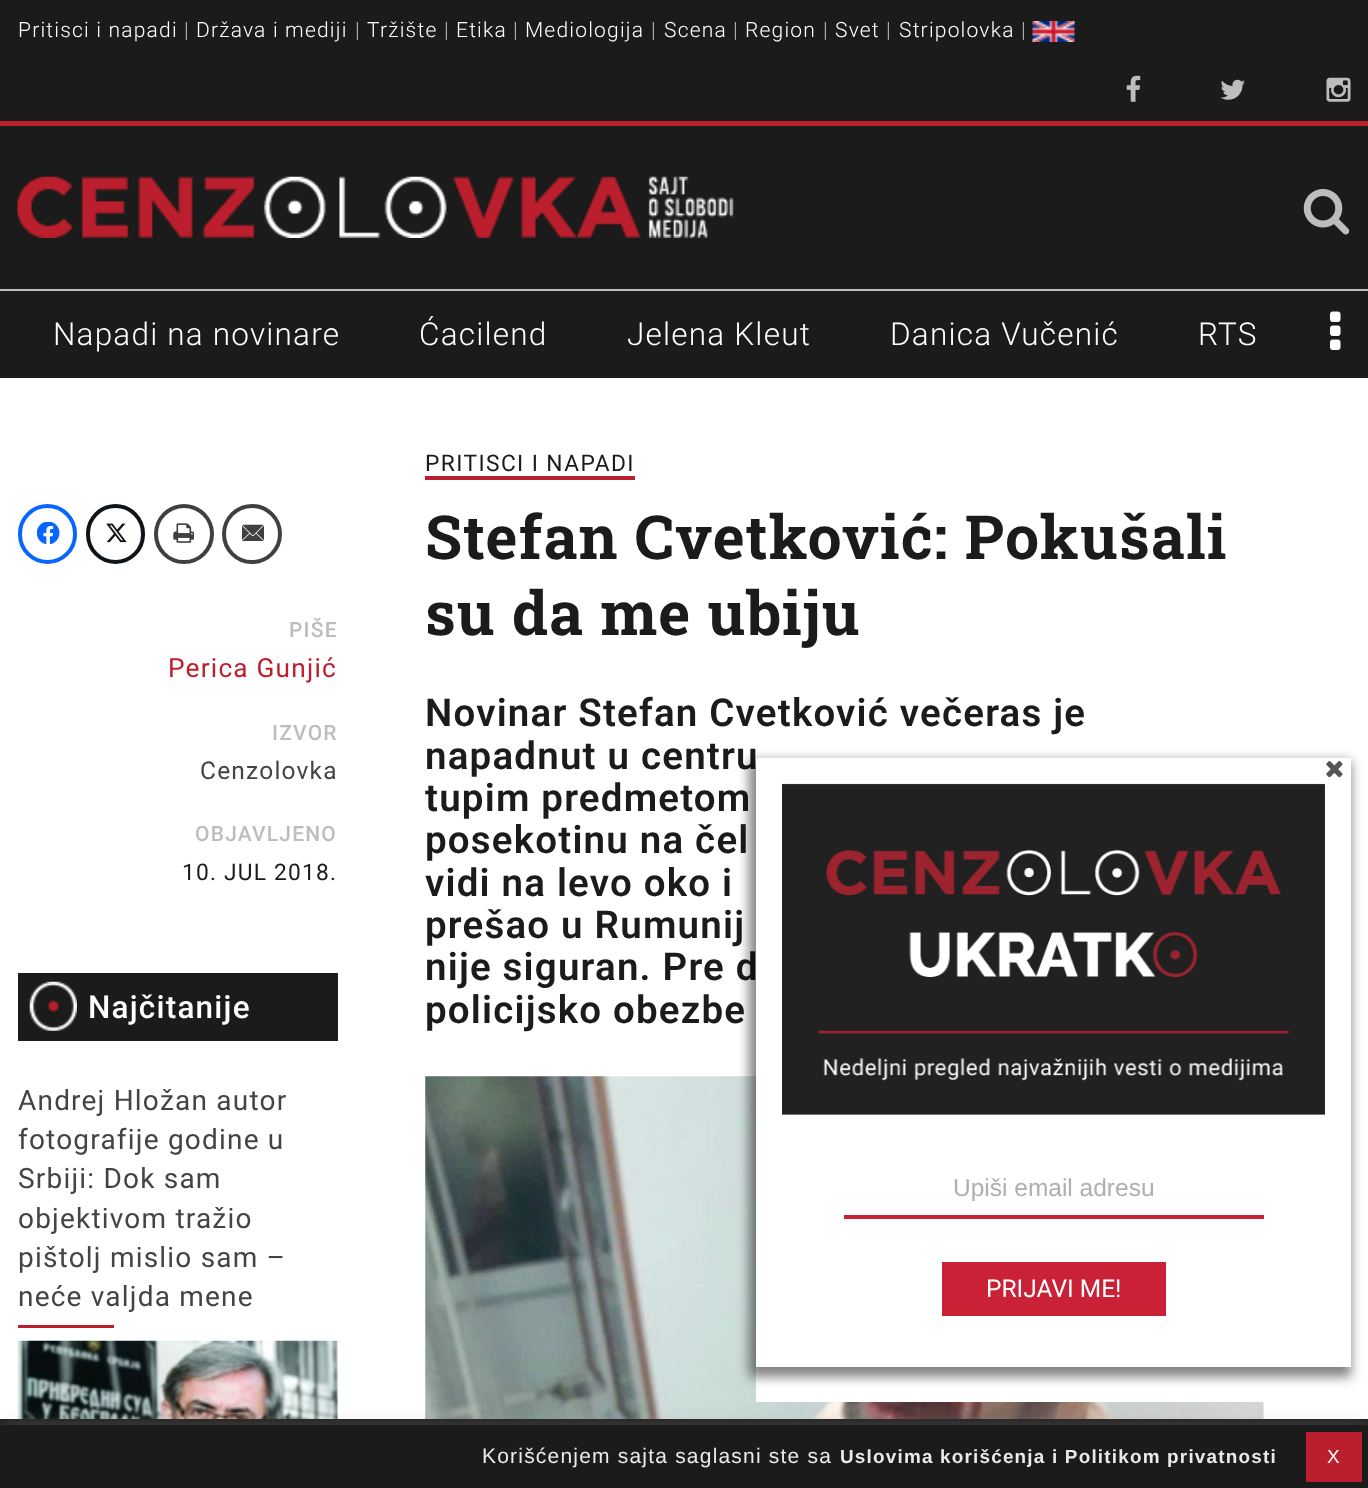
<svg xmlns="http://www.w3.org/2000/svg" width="1368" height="1488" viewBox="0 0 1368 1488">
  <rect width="100%" height="100%" fill="rgb(255,255,255)"/>
  <rect x="0" y="0" width="1368" height="378" fill="rgb(27,27,27)"/>
  <text x="18" y="37" font-family="Roboto" font-size="21" font-weight="300" letter-spacing="1.2" fill="rgb(255,255,255)">Pritisci i napadi</text>
  <text x="184" y="37" font-family="Roboto" font-size="21" font-weight="300" letter-spacing="1.2" fill="rgb(189,189,189)">|</text>
  <text x="196" y="37" font-family="Roboto" font-size="21" font-weight="300" letter-spacing="1.2" fill="rgb(255,255,255)">Država i mediji</text>
  <text x="355" y="37" font-family="Roboto" font-size="21" font-weight="300" letter-spacing="1.2" fill="rgb(189,189,189)">|</text>
  <text x="367" y="37" font-family="Roboto" font-size="21" font-weight="300" letter-spacing="1.2" fill="rgb(255,255,255)">Tržište</text>
  <text x="444" y="37" font-family="Roboto" font-size="21" font-weight="300" letter-spacing="1.2" fill="rgb(189,189,189)">|</text>
  <text x="456" y="37" font-family="Roboto" font-size="21" font-weight="300" letter-spacing="1.2" fill="rgb(255,255,255)">Etika</text>
  <text x="513" y="37" font-family="Roboto" font-size="21" font-weight="300" letter-spacing="1.2" fill="rgb(189,189,189)">|</text>
  <text x="525" y="37" font-family="Roboto" font-size="21" font-weight="300" letter-spacing="1.2" fill="rgb(255,255,255)">Mediologija</text>
  <text x="651" y="37" font-family="Roboto" font-size="21" font-weight="300" letter-spacing="1.2" fill="rgb(189,189,189)">|</text>
  <text x="664" y="37" font-family="Roboto" font-size="21" font-weight="300" letter-spacing="1.2" fill="rgb(255,255,255)">Scena</text>
  <text x="733" y="37" font-family="Roboto" font-size="21" font-weight="300" letter-spacing="1.2" fill="rgb(189,189,189)">|</text>
  <text x="745" y="37" font-family="Roboto" font-size="21" font-weight="300" letter-spacing="1.2" fill="rgb(255,255,255)">Region</text>
  <text x="823" y="37" font-family="Roboto" font-size="21" font-weight="300" letter-spacing="1.2" fill="rgb(189,189,189)">|</text>
  <text x="835" y="37" font-family="Roboto" font-size="21" font-weight="300" letter-spacing="1.2" fill="rgb(255,255,255)">Svet</text>
  <text x="886" y="37" font-family="Roboto" font-size="21" font-weight="300" letter-spacing="1.2" fill="rgb(189,189,189)">|</text>
  <text x="899" y="37" font-family="Roboto" font-size="21" font-weight="300" letter-spacing="1.2" fill="rgb(255,255,255)">Stripolovka</text>
  <text x="1021" y="37" font-family="Roboto" font-size="21" font-weight="300" letter-spacing="1.2" fill="rgb(189,189,189)">|</text>
  <image x="1032" y="21" width="43" height="21" href="pic1.png"/>
  <image x="1126" y="75" width="15" height="27" href="pic2.png"/>
  <image x="1220" y="79" width="25" height="21" href="pic3.png"/>
  <image x="1326" y="77" width="25" height="25" href="pic4.png"/>
  <rect x="0" y="121" width="1368" height="5" fill="rgb(187,31,45)"/>
  <image x="17" y="176" width="717" height="62" href="pic5.png"/>
  <image x="1303" y="189" width="47" height="46" href="pic6.png"/>
  <rect x="0" y="289" width="1368" height="2" fill="rgb(189,189,189)"/>
  <g font-family="Roboto" font-size="31.5" font-weight="300" letter-spacing="1.2" fill="rgb(255,255,255)">
    <text x="53" y="345">Napadi na novinare</text>
    <text x="419" y="345">Ćacilend</text>
    <text x="627" y="345">Jelena Kleut</text>
    <text x="890" y="345">Danica Vučenić</text>
    <text x="1198" y="345">RTS</text>
  </g>
  <image x="1330" y="311" width="11" height="39" href="pic7.png"/>
  <rect x="20" y="506" width="55" height="56" rx="27.5" fill="none" stroke="rgb(8,102,255)" stroke-width="4"/>
  <image x="37" y="522" width="23" height="22" href="pic8.png"/>
  <rect x="88" y="506" width="55" height="56" rx="27.5" fill="none" stroke="rgb(15,20,25)" stroke-width="4"/>
  <image x="106" y="523" width="21" height="20" href="pic9.png"/>
  <circle cx="184" cy="534" r="28" fill="none" stroke="rgb(64,64,64)" stroke-width="4"/>
  <image x="173" y="523" width="21" height="20" href="pic10.png"/>
  <circle cx="252" cy="534" r="28" fill="none" stroke="rgb(64,64,64)" stroke-width="4"/>
  <image x="242" y="524" width="22" height="17" href="pic11.png"/>
  <text x="289" y="637" font-family="Roboto" font-size="21" font-weight="500" letter-spacing="1.2" fill="rgb(189,189,189)">PIŠE</text>
  <text x="168" y="677" font-family="Roboto" font-size="26.25" letter-spacing="1.2" fill="rgb(187,31,45)">Perica Gunjić</text>
  <text x="272" y="740" font-family="Roboto" font-size="21" font-weight="500" letter-spacing="1.2" fill="rgb(189,189,189)">IZVOR</text>
  <text x="200" y="779" font-family="Roboto" font-size="24.5" letter-spacing="1.2" fill="rgb(68,68,68)">Cenzolovka</text>
  <text x="195" y="841" font-family="Roboto" font-size="21" font-weight="500" letter-spacing="1.2" fill="rgb(189,189,189)">OBJAVLJENO</text>
  <text x="182" y="880" font-family="Roboto" font-size="22.75" letter-spacing="1.2" fill="rgb(27,27,27)">10. JUL 2018.</text>
  <rect x="18" y="973" width="320" height="68" fill="rgb(27,27,27)"/>
  <image x="29" y="981" width="48" height="50" href="pic12.png"/>
  <text x="88" y="1018" font-family="Roboto" font-size="31.5" font-weight="500" letter-spacing="1.2" fill="rgb(255,255,255)">Najčitanije</text>
  <g font-family="Roboto" font-size="28" letter-spacing="1.2" fill="rgb(68,68,68)">
    <text>
      <tspan x="18" y="1110">Andrej Hložan autor</tspan>
      <tspan x="18" y="1149">fotografije godine u</tspan>
      <tspan x="18" y="1188">Srbiji: Dok sam</tspan>
      <tspan x="18" y="1228">objektivom tražio</tspan>
      <tspan x="18" y="1267">pištolj mislio sam –</tspan>
      <tspan x="18" y="1306">neće valjda mene</tspan>
    </text>
  </g>
  <rect x="18" y="1325" width="96" height="3" fill="rgb(187,31,45)"/>
  <image x="17" y="1340" width="321" height="79" href="pic13.png"/>
  <text x="425" y="471" font-family="Roboto" font-size="22.75" letter-spacing="1.4" fill="rgb(27,27,27)">PRITISCI I NAPADI</text>
  <rect x="425" y="476" width="210" height="4" fill="rgb(187,31,45)"/>
  <g font-family="Roboto Slab" font-size="60.7" font-weight="bold" letter-spacing="1.2" fill="rgb(27,27,27)">
    <text>
      <tspan x="425" y="559">Stefan Cvetković: Pokušali</tspan>
      <tspan x="425" y="635">su da me ubiju</tspan>
    </text>
  </g>
  <g font-family="Roboto" font-size="38.5" font-weight="600" letter-spacing="1.2" fill="rgb(27,27,27)">
    <text>
      <tspan x="425" y="726">Novinar Stefan Cvetković večeras je</tspan>
      <tspan x="425" y="769">napadnut u centru</tspan>
      <tspan x="425" y="811">tupim predmetom</tspan>
      <tspan x="425" y="853">posekotinu na čel</tspan>
      <tspan x="425" y="896">vidi na levo oko i</tspan>
      <tspan x="425" y="938">prešao u Rumunij</tspan>
      <tspan x="425" y="980">nije siguran. Pre d</tspan>
      <tspan x="425" y="1023">policijsko obezbe</tspan>
    </text>
  </g>
  <image x="425" y="1076" width="839" height="343" href="pic14.png"/>
  <rect x="756" y="1367" width="508" height="35" fill="rgb(255,255,255)"/>
  <rect x="749" y="761" width="602" height="616" fill="rgba(0,0,0,0.49)" filter="blur(6px)"/>
  <rect x="756" y="758" width="595" height="609" fill="rgb(255,255,255)"/>
  <image x="1326" y="761" width="17" height="17" href="pic15.png"/>
  <image x="782" y="783" width="543" height="332" href="pic16.png"/>
  <rect x="844" y="1215" width="420" height="4" fill="rgb(202,33,54)"/>
  <text x="953" y="1196" font-family="Liberation Sans" font-size="24.5" fill="rgb(175,175,175)">Upiši email adresu</text>
  <rect x="942" y="1262" width="224" height="54" fill="rgb(202,33,54)"/>
  <text x="986" y="1297" font-family="Roboto" font-size="24.5" fill="rgb(255,255,255)">PRIJAVI ME!</text>
  <rect x="0" y="1419" width="1368" height="6" fill="rgb(27,27,27)"/>
  <rect x="0" y="1423" width="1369" height="65" fill="rgba(172,171,171,0.3)" filter="blur(9px)"/>
  <rect x="0" y="1425" width="1368" height="63" fill="rgb(27,27,27)"/>
  <text x="482" y="1463" font-family="Liberation Sans" font-size="21" letter-spacing="1.2" fill="rgb(234,234,234)">Korišćenjem sajta saglasni ste sa</text>
  <text x="840" y="1463" font-family="Liberation Sans" font-size="18.9" font-weight="bold" letter-spacing="1.2" fill="rgb(234,234,234)">Uslovima korišćenja i Politikom privatnosti</text>
  <rect x="1306" y="1432" width="56" height="50" fill="rgb(187,31,45)"/>
  <text x="1327" y="1463" font-family="Liberation Sans" font-size="18.9" letter-spacing="1.2" fill="rgb(255,255,255)">X</text>
</svg>
